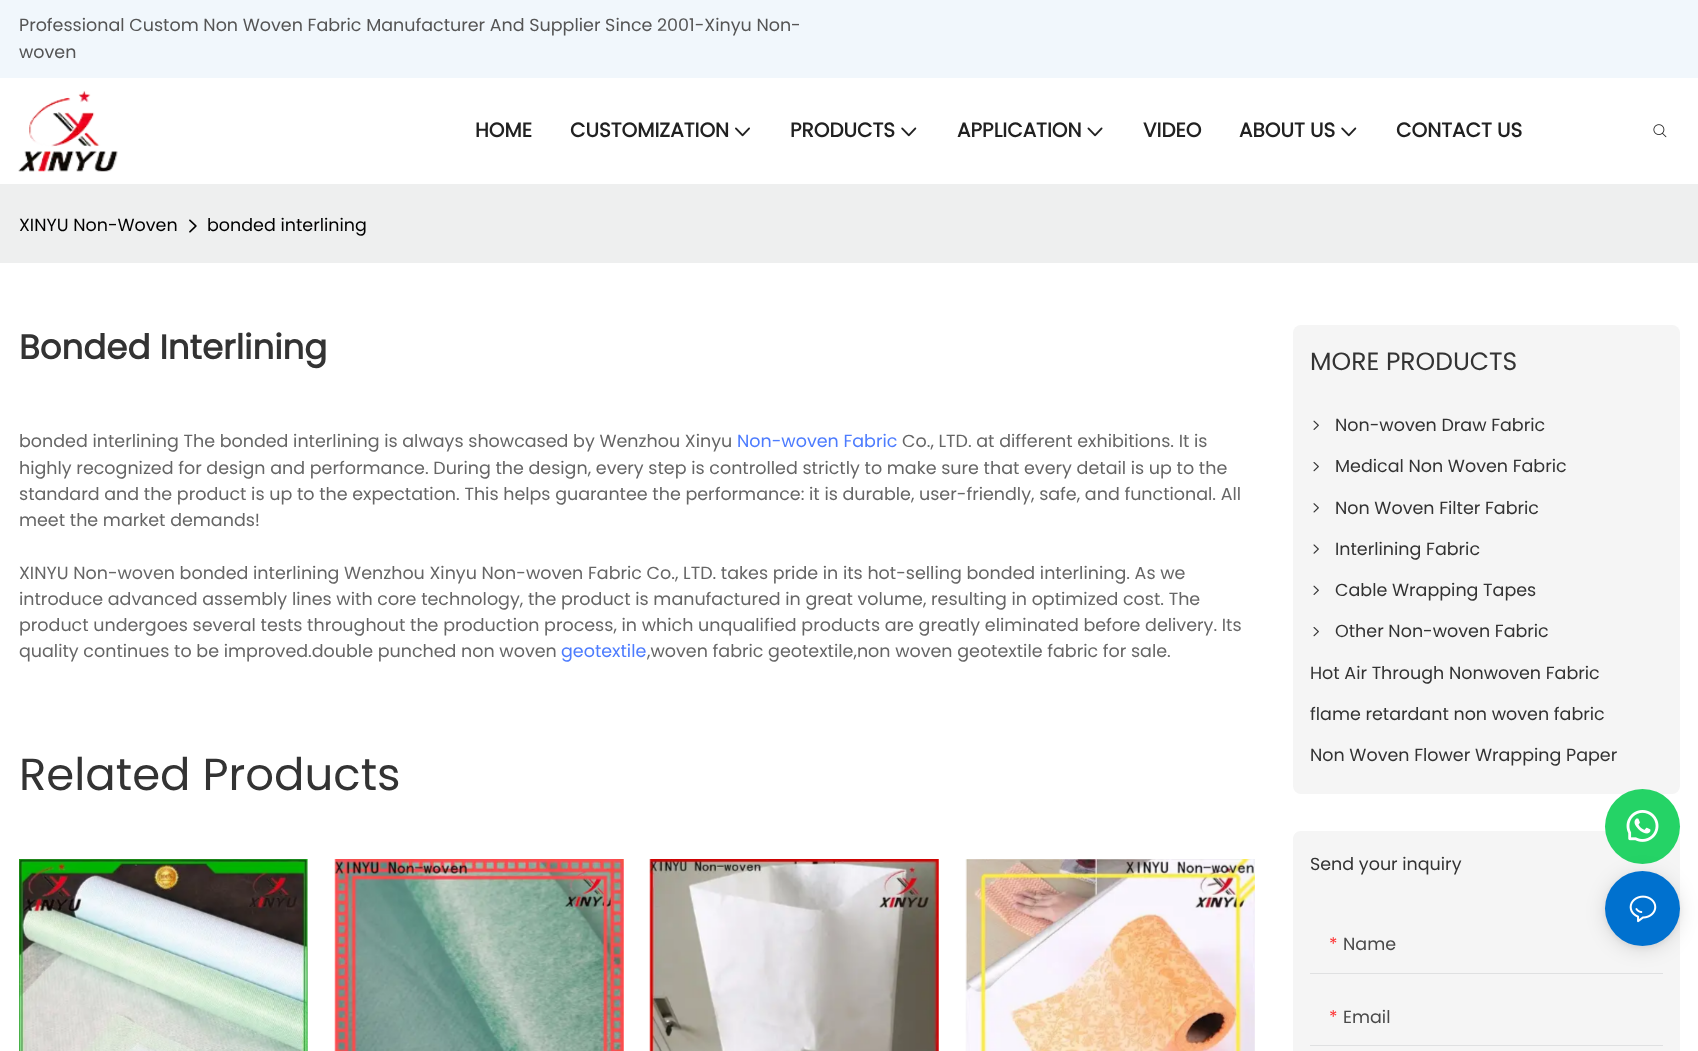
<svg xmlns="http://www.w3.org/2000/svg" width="1698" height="1051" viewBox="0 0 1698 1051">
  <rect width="100%" height="100%" fill="rgb(255,255,255)"/>
  <rect x="0" y="0" width="1698" height="78" fill="rgb(241,247,252)"/>
  <g font-family="Poppins" font-size="17.5" fill="rgb(85,85,85)">
    <text>
      <tspan x="19" y="31">Professional Custom Non Woven Fabric Manufacturer And Supplier Since 2001-Xinyu Non-</tspan>
      <tspan x="19" y="58">woven</tspan>
    </text>
  </g>
  <image x="18" y="90" width="100" height="82" href="pic1.png"/>
  <g font-family="Poppins" font-size="20" font-weight="bold" fill="rgb(33,33,33)">
    <text x="475" y="137">HOME</text>
    <text x="570" y="137">CUSTOMIZATION</text>
  </g>
  <image x="735" y="127" width="15" height="10" href="pic2.png"/>
  <text x="790" y="137" font-family="Poppins" font-size="20" font-weight="bold" fill="rgb(33,33,33)">PRODUCTS</text>
  <image x="901" y="127" width="16" height="10" href="pic3.png"/>
  <text x="957" y="137" font-family="Poppins" font-size="20" font-weight="bold" fill="rgb(33,33,33)">APPLICATION</text>
  <image x="1087" y="127" width="16" height="10" href="pic4.png"/>
  <g font-family="Poppins" font-size="20" font-weight="bold" fill="rgb(33,33,33)">
    <text x="1143" y="137">VIDEO</text>
    <text x="1239" y="137">ABOUT US</text>
  </g>
  <image x="1341" y="127" width="16" height="10" href="pic3.png"/>
  <text x="1396" y="137" font-family="Poppins" font-size="20" font-weight="bold" fill="rgb(33,33,33)">CONTACT US</text>
  <image x="1653" y="124" width="14" height="14" href="pic5.png"/>
  <rect x="0" y="184" width="1698" height="79" fill="rgb(238,239,239)"/>
  <text x="19" y="231" font-family="Poppins" font-size="17.5" fill="rgb(0,0,0)">XINYU Non-Woven</text>
  <image x="189" y="219" width="8" height="14" href="pic6.png"/>
  <text x="207" y="231" font-family="Poppins" font-size="17.5" fill="rgb(0,0,0)">bonded interlining</text>
  <text x="19" y="359" font-family="Poppins" font-size="34" font-weight="bold" fill="rgb(51,51,51)">Bonded Interlining</text>
  <text x="19" y="447" font-family="Poppins" font-size="17.5" fill="rgb(102,102,102)">bonded interlining The bonded interlining is always showcased by Wenzhou Xinyu</text>
  <text x="737" y="447" font-family="Poppins" font-size="17.5" fill="rgb(77,124,254)">Non-woven Fabric</text>
  <g font-family="Poppins" font-size="17.5" fill="rgb(102,102,102)">
    <text x="902" y="447">Co., LTD. at different exhibitions. It is</text>
    <text>
      <tspan x="19" y="474">highly recognized for design and performance. During the design, every step is controlled strictly to make sure that every detail is up to the</tspan>
      <tspan x="19" y="500">standard and the product is up to the expectation. This helps guarantee the performance: it is durable, user-friendly, safe, and functional. All</tspan>
      <tspan x="19" y="526">meet the market demands!</tspan>
    </text>
    <text>
      <tspan x="19" y="579">XINYU Non-woven bonded interlining Wenzhou Xinyu Non-woven Fabric Co., LTD. takes pride in its hot-selling bonded interlining. As we</tspan>
      <tspan x="19" y="605">introduce advanced assembly lines with core technology, the product is manufactured in great volume, resulting in optimized cost. The</tspan>
      <tspan x="19" y="631">product undergoes several tests throughout the production process, in which unqualified products are greatly eliminated before delivery. Its</tspan>
      <tspan x="19" y="657">quality continues to be improved.double punched non woven</tspan>
    </text>
  </g>
  <text x="561" y="657" font-family="Poppins" font-size="17.5" fill="rgb(77,124,254)">geotextile</text>
  <text x="647" y="657" font-family="Poppins" font-size="17.5" fill="rgb(102,102,102)">,woven fabric geotextile,non woven geotextile fabric for sale.</text>
  <text x="19" y="790" font-family="Poppins" font-size="45" fill="rgb(51,51,51)">Related Products</text>
  <image x="19" y="859" width="289" height="192" href="pic7.png"/>
  <image x="334" y="859" width="290" height="192" href="pic8.png"/>
  <image x="649" y="859" width="290" height="192" href="pic9.png"/>
  <image x="965" y="859" width="290" height="192" href="pic10.png"/>
  <rect x="1293" y="325" width="387" height="469" rx="8" fill="rgb(245,245,245)"/>
  <text x="1310" y="370" font-family="Poppins" font-size="25" fill="rgb(51,51,51)">MORE PRODUCTS</text>
  <image x="1313" y="420" width="6" height="10" href="pic11.png"/>
  <text x="1335" y="431" font-family="Poppins" font-size="17.5" fill="rgb(51,51,51)">Non-woven Draw Fabric</text>
  <image x="1313" y="462" width="6" height="10" href="pic12.png"/>
  <text x="1335" y="472" font-family="Poppins" font-size="17.5" fill="rgb(51,51,51)">Medical Non Woven Fabric</text>
  <image x="1313" y="503" width="6" height="10" href="pic13.png"/>
  <text x="1335" y="514" font-family="Poppins" font-size="17.5" fill="rgb(51,51,51)">Non Woven Filter Fabric</text>
  <image x="1313" y="544" width="6" height="10" href="pic14.png"/>
  <text x="1335" y="555" font-family="Poppins" font-size="17.5" fill="rgb(51,51,51)">Interlining Fabric</text>
  <image x="1313" y="585" width="6" height="10" href="pic11.png"/>
  <text x="1335" y="596" font-family="Poppins" font-size="17.5" fill="rgb(51,51,51)">Cable Wrapping Tapes</text>
  <image x="1313" y="627" width="6" height="10" href="pic12.png"/>
  <g font-family="Poppins" font-size="17.5" fill="rgb(51,51,51)">
    <text x="1335" y="637">Other Non-woven Fabric</text>
    <text x="1310" y="679">Hot Air Through Nonwoven Fabric</text>
    <text x="1310" y="720">flame retardant non woven fabric</text>
    <text x="1310" y="761">Non Woven Flower Wrapping Paper</text>
  </g>
  <path d="M1301 831H1672C1676.5 831 1680 834.5 1680 839V898H1293V839C1293 834.5 1296.5 831 1301 831Z" fill="rgb(245,245,245)"/>
  <text x="1310" y="870" font-family="Poppins" font-size="17.5" fill="rgb(51,51,51)">Send your inquiry</text>
  <rect x="1293" y="898" width="387" height="153" fill="rgb(245,245,245)"/>
  <text x="1329" y="950" font-family="Poppins" font-size="17.5" fill="rgb(253,49,49)">*</text>
  <text x="1343" y="950" font-family="Poppins" font-size="17.5" fill="rgb(74,74,74)">Name</text>
  <rect x="1310" y="973" width="353" height="1" fill="rgb(223,224,225)"/>
  <text x="1329" y="1023" font-family="Poppins" font-size="17.5" fill="rgb(253,49,49)">*</text>
  <text x="1343" y="1023" font-family="Poppins" font-size="17.5" fill="rgb(74,74,74)">Email</text>
  <rect x="1310" y="1045" width="353" height="1" fill="rgb(223,224,225)"/>
  <circle cx="1642.5" cy="826.5" r="37.5" fill="rgb(37,211,102)"/>
  <image x="1626" y="810" width="33" height="32" href="pic15.png"/>
  <rect x="1605" y="874" width="75" height="75" rx="37.5" fill="rgba(0,0,0,0.12)" filter="blur(10px)"/>
  <rect x="1605" y="873" width="75" height="75" rx="37.5" fill="rgba(0,0,0,0.06)" filter="blur(2.5px)"/>
  <circle cx="1642.5" cy="908.5" r="37.5" fill="rgb(0,113,207)"/>
  <image x="1629" y="895" width="28" height="28" href="pic16.png"/>
</svg>
